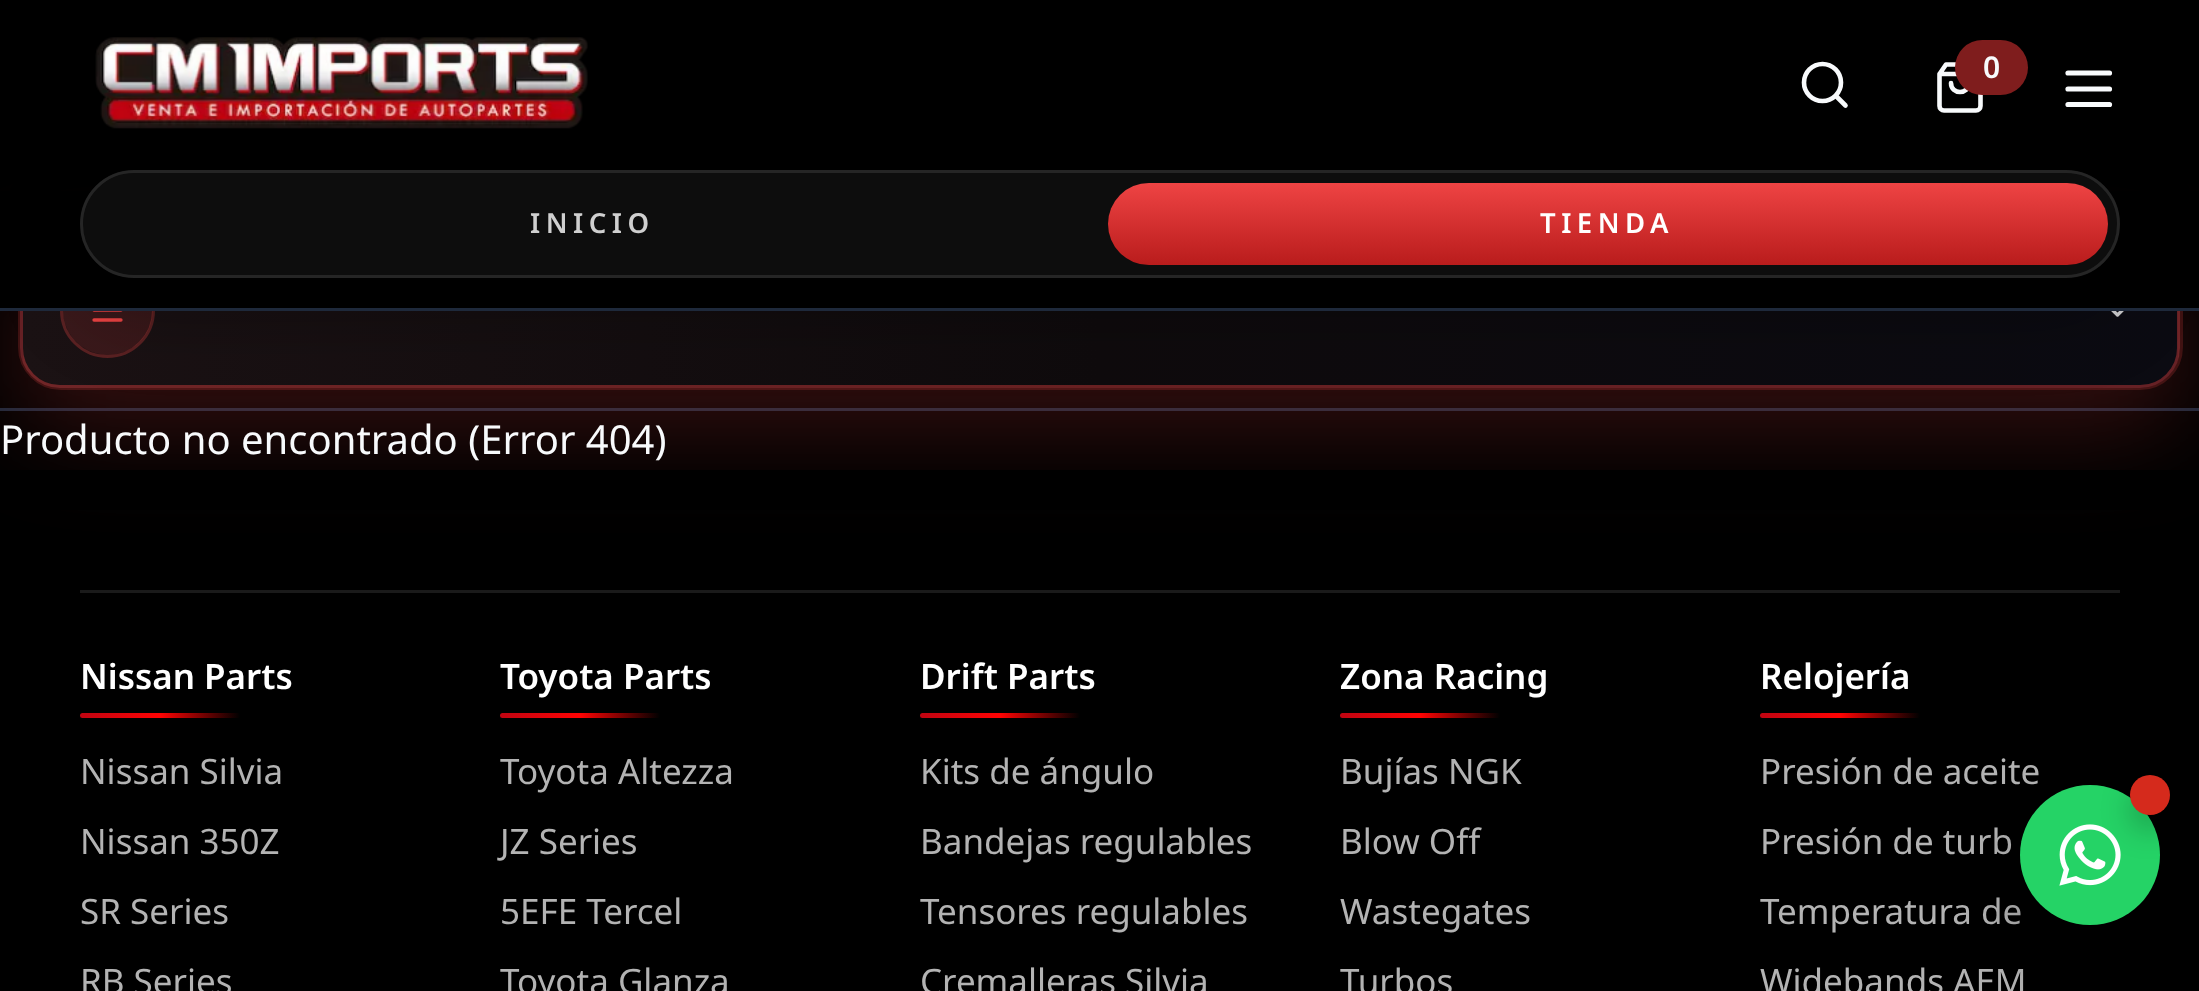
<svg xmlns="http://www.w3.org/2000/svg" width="2199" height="991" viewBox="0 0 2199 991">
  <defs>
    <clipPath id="clip1"><rect x="20" y="233" width="2160" height="155" rx="40"/></clipPath>
    <linearGradient id="g1" gradientUnits="userSpaceOnUse" x1="-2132" y1="310" x2="23" y2="310"><stop offset="0" stop-color="rgb(27,18,20)"/><stop offset="0.5" stop-color="rgb(15,11,13)"/><stop offset="1" stop-color="rgb(11,11,18)"/></linearGradient>
    <linearGradient id="g2" gradientUnits="userSpaceOnUse" x1="23" y1="310" x2="2178" y2="310"><stop offset="0" stop-color="rgb(27,18,20)"/><stop offset="0.5" stop-color="rgb(15,11,13)"/><stop offset="1" stop-color="rgb(11,11,18)"/></linearGradient>
    <linearGradient id="g3" gradientUnits="userSpaceOnUse" x1="2178" y1="310" x2="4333" y2="310"><stop offset="0" stop-color="rgb(27,18,20)"/><stop offset="0.5" stop-color="rgb(15,11,13)"/><stop offset="1" stop-color="rgb(11,11,18)"/></linearGradient>
    <linearGradient id="g4" gradientUnits="userSpaceOnUse" x1="1608" y1="182" x2="1608" y2="265"><stop offset="0" stop-color="rgb(239,68,68)"/><stop offset="1" stop-color="rgb(185,28,28)"/></linearGradient>
    <linearGradient id="g5" gradientUnits="userSpaceOnUse" x1="80" y1="715" x2="240" y2="715"><stop offset="0" stop-color="rgb(191,4,17)"/><stop offset="0.5" stop-color="rgb(255,3,3)"/><stop offset="1" stop-color="rgb(0,0,0)"/></linearGradient>
    <linearGradient id="g6" gradientUnits="userSpaceOnUse" x1="500" y1="715" x2="660" y2="715"><stop offset="0" stop-color="rgb(191,4,17)"/><stop offset="0.5" stop-color="rgb(255,3,3)"/><stop offset="1" stop-color="rgb(0,0,0)"/></linearGradient>
    <linearGradient id="g7" gradientUnits="userSpaceOnUse" x1="920" y1="715" x2="1080" y2="715"><stop offset="0" stop-color="rgb(191,4,17)"/><stop offset="0.5" stop-color="rgb(255,3,3)"/><stop offset="1" stop-color="rgb(0,0,0)"/></linearGradient>
    <linearGradient id="g8" gradientUnits="userSpaceOnUse" x1="1340" y1="715" x2="1500" y2="715"><stop offset="0" stop-color="rgb(191,4,17)"/><stop offset="0.5" stop-color="rgb(255,3,3)"/><stop offset="1" stop-color="rgb(0,0,0)"/></linearGradient>
    <linearGradient id="g9" gradientUnits="userSpaceOnUse" x1="1760" y1="715" x2="1920" y2="715"><stop offset="0" stop-color="rgb(191,4,17)"/><stop offset="0.5" stop-color="rgb(255,3,3)"/><stop offset="1" stop-color="rgb(0,0,0)"/></linearGradient>
  </defs>
  <rect width="100%" height="100%" fill="rgb(0,0,0)"/>
  <rect x="0" y="408" width="2199" height="3" fill="rgb(30,41,59)"/>
  <rect x="20" y="273" width="2160" height="155" rx="40" fill="rgba(239,68,68,0.22)" filter="blur(50px)"/>
  <rect x="19.5" y="231.5" width="2162" height="157" rx="41.5" fill="none" stroke="rgba(239,68,68,0.2)" stroke-width="3"/>
  <g clip-path="url(#clip1)">
    <rect x="20" y="311" width="3" height="52" fill="url(#g1)"/>
    <rect x="23" y="311" width="2155" height="77" fill="url(#g2)"/>
    <rect x="2178" y="311" width="2" height="50" fill="url(#g3)"/>
  </g>
  <rect x="21.5" y="234.5" width="2157" height="152" rx="38.5" fill="none" stroke="rgba(239,68,68,0.4)" stroke-width="3"/>
  <circle cx="107.5" cy="310.5" r="46" fill="none" stroke="rgb(90,33,34)" stroke-width="3"/>
  <circle cx="108" cy="310" r="45" fill="rgba(239,68,68,0.15)"/>
  <path d="M2107.5 305L2117.5 315L2127.5 305" fill="none" stroke="rgb(206,206,208)" stroke-width="3.3" stroke-linecap="round" stroke-linejoin="round"/>
  <rect x="0" y="191" width="2199" height="117" fill="rgb(0,0,0)"/>
  <path d="M94 310H121M94 320H121" fill="none" stroke="rgb(239,68,68)" stroke-width="3.3" stroke-linecap="round" stroke-linejoin="round"/>
  <rect x="80" y="200" width="2040" height="108" rx="54" fill="rgba(0,0,0,0.35)" filter="blur(40px)"/>
  <image x="95" y="37" width="493" height="92" href="pic1.png"/>
  <circle cx="1822.5" cy="82.5" r="18.5" fill="none" stroke="rgb(248,250,252)" stroke-width="4.6"/>
  <path d="M1845.5 105.5L1836 96" fill="none" stroke="rgb(248,250,252)" stroke-width="4.6" stroke-linecap="round" stroke-linejoin="round"/>
  <path d="M1946 64.5L1939.5 74V106C1939.5 108.5 1941.5 110.5 1944 110.5H1976C1978.5 110.5 1980.5 108.5 1980.5 106V74L1974 64.5ZM1939.5 74H1980.5M1969 83C1969 95 1951 95 1951 83" fill="none" stroke="rgb(248,250,252)" stroke-width="4.6" stroke-linecap="round" stroke-linejoin="round"/>
  <rect x="1955" y="40" width="73" height="55" rx="27.5" fill="rgb(127,29,29)"/>
  <text x="1983" y="78" font-family="Noto Sans" font-size="30" font-weight="600" fill="rgb(248,250,252)">0</text>
  <path d="M2068 89H2109.5M2068 73H2109.5M2068 104.5H2109.5" fill="none" stroke="rgb(248,250,252)" stroke-width="5.2" stroke-linecap="round" stroke-linejoin="round"/>
  <rect x="80" y="170" width="2040" height="108" rx="54" fill="rgb(13,13,13)"/>
  <rect x="81.5" y="171.5" width="2037" height="105" rx="52.5" fill="none" stroke="rgba(255,255,255,0.1)" stroke-width="3"/>
  <text x="530" y="233" font-family="Noto Sans" font-size="27.5" font-weight="600" letter-spacing="5.5" fill="rgb(207,207,207)">INICIO</text>
  <rect x="1108" y="183" width="1000" height="82" rx="41" fill="url(#g4)"/>
  <text x="1540" y="233" font-family="Noto Sans" font-size="27.5" font-weight="600" letter-spacing="5.5" fill="rgb(255,255,255)">TIENDA</text>
  <rect x="0" y="308" width="2199" height="3" fill="rgb(30,41,59)"/>
  <text x="0" y="454" font-family="Noto Sans" font-size="40" fill="rgb(248,250,252)">Producto no encontrado (Error 404)</text>
  <rect x="0" y="470" width="2199" height="40" fill="rgb(0,0,0)"/>
  <rect x="80" y="590" width="2040" height="3" fill="rgb(26,26,26)"/>
  <text x="80" y="689" font-family="Noto Sans" font-size="35" font-weight="600" fill="rgb(255,255,255)">Nissan Parts</text>
  <rect x="80" y="713" width="160" height="5" rx="2.5" fill="url(#g5)"/>
  <g font-family="Noto Sans" font-size="35" fill="rgb(179,179,179)">
    <text x="80" y="784">Nissan Silvia</text>
    <text x="80" y="854">Nissan 350Z</text>
    <text x="80" y="924">SR Series</text>
    <text x="80" y="994">RB Series</text>
  </g>
  <text x="500" y="689" font-family="Noto Sans" font-size="35" font-weight="600" fill="rgb(255,255,255)">Toyota Parts</text>
  <rect x="500" y="713" width="160" height="5" rx="2.5" fill="url(#g6)"/>
  <g font-family="Noto Sans" font-size="35" fill="rgb(179,179,179)">
    <text x="500" y="784">Toyota Altezza</text>
    <text x="500" y="854">JZ Series</text>
    <text x="500" y="924">5EFE Tercel</text>
    <text x="500" y="994">Toyota Glanza</text>
  </g>
  <text x="920" y="689" font-family="Noto Sans" font-size="35" font-weight="600" fill="rgb(255,255,255)">Drift Parts</text>
  <rect x="920" y="713" width="160" height="5" rx="2.5" fill="url(#g7)"/>
  <g font-family="Noto Sans" font-size="35" fill="rgb(179,179,179)">
    <text x="920" y="784">Kits de ángulo</text>
    <text x="920" y="854">Bandejas regulables</text>
    <text x="920" y="924">Tensores regulables</text>
    <text x="920" y="994">Cremalleras Silvia</text>
  </g>
  <text x="1340" y="689" font-family="Noto Sans" font-size="35" font-weight="600" fill="rgb(255,255,255)">Zona Racing</text>
  <rect x="1340" y="713" width="160" height="5" rx="2.5" fill="url(#g8)"/>
  <g font-family="Noto Sans" font-size="35" fill="rgb(179,179,179)">
    <text x="1340" y="784">Bujías NGK</text>
    <text x="1340" y="854">Blow Off</text>
    <text x="1340" y="924">Wastegates</text>
    <text x="1340" y="994">Turbos</text>
  </g>
  <text x="1760" y="689" font-family="Noto Sans" font-size="35" font-weight="600" fill="rgb(255,255,255)">Relojería</text>
  <rect x="1760" y="713" width="160" height="5" rx="2.5" fill="url(#g9)"/>
  <g font-family="Noto Sans" font-size="35" fill="rgb(179,179,179)">
    <text x="1760" y="784">Presión de aceite</text>
    <text x="1760" y="854">Presión de turb</text>
    <text x="1760" y="924">Temperatura de</text>
    <text x="1760" y="994">Widebands AEM</text>
  </g>
  <rect x="2020" y="820" width="140" height="140" rx="70" fill="rgba(0,0,0,0.3)" filter="blur(37.5px)"/>
  <circle cx="2090" cy="855" r="70" fill="rgb(37,211,102)"/>
  <image x="2059" y="824" width="62" height="62" href="pic2.png"/>
  <rect x="2130" y="790" width="40" height="40" rx="20" fill="rgba(0,0,0,0.25)" filter="blur(15px)"/>
  <circle cx="2150" cy="795" r="20" fill="rgb(213,42,28)"/>
</svg>
